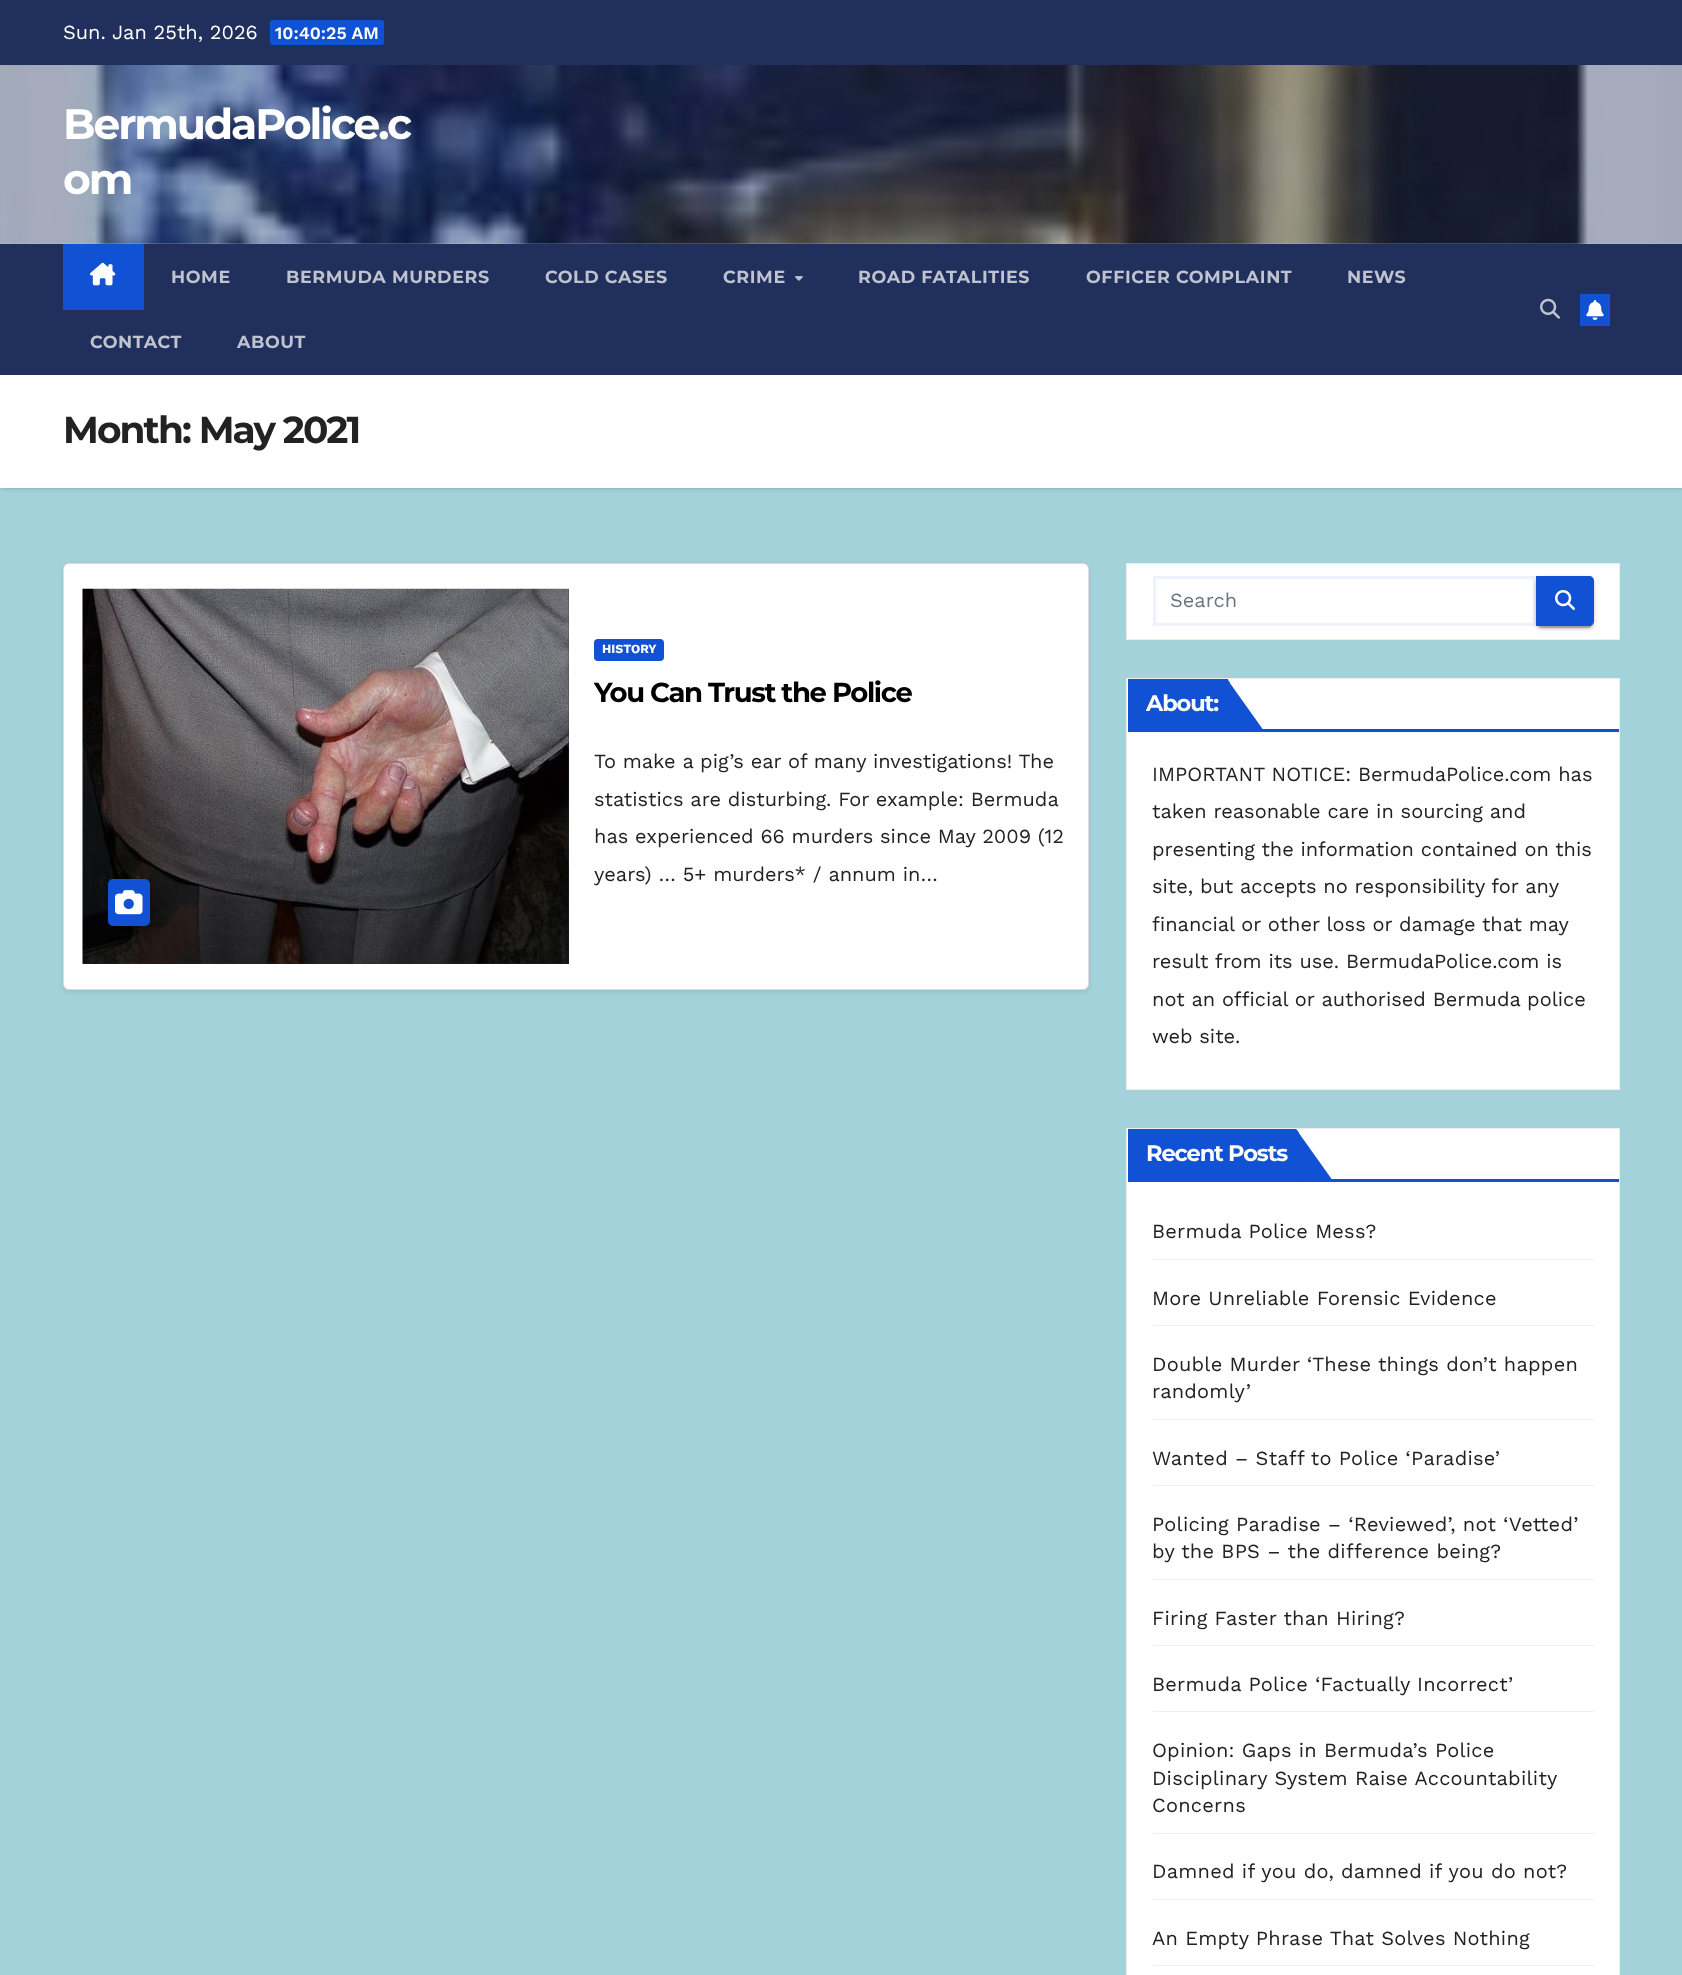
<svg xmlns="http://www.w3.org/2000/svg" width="1682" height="1975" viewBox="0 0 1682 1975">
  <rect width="100%" height="100%" fill="rgb(164,210,219)"/>
  <rect x="0" y="0" width="1682" height="65" fill="rgb(32,47,91)"/>
  <text x="63" y="39" font-family="Work Sans" font-size="20" fill="rgb(255,255,255)">Sun. Jan 25th, 2026</text>
  <rect x="270" y="20" width="114" height="25" rx="2.5" fill="rgb(17,81,211)"/>
  <text x="275" y="39" font-family="Work Sans" font-size="17.5" font-weight="600" fill="rgb(255,255,255)">10:40:25 AM</text>
  <image x="0" y="65" width="1682" height="179" href="pic1.png"/>
  <g font-family="Montserrat" font-size="42.5" font-weight="bold" letter-spacing="-2.1" fill="rgb(255,255,255)">
    <text>
      <tspan x="63" y="139">BermudaPolice.c</tspan>
      <tspan x="63" y="194">om</tspan>
    </text>
  </g>
  <rect x="0" y="376" width="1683" height="113" fill="rgba(0,0,0,0.15)" filter="blur(2px)"/>
  <rect x="0" y="244" width="1682" height="131" fill="rgb(32,47,91)"/>
  <rect x="63" y="244" width="81" height="66" fill="rgb(17,81,211)"/>
  <image x="90" y="262" width="26" height="24" href="pic2.png"/>
  <g font-family="Montserrat" font-size="17.5" font-weight="bold" letter-spacing="0.6" fill="rgb(190,195,207)">
    <text x="171" y="283">HOME</text>
    <text x="286" y="283">BERMUDA MURDERS</text>
    <text x="545" y="283">COLD CASES</text>
    <text x="723" y="283">CRIME</text>
  </g>
  <image x="795" y="276" width="8" height="5" href="pic3.png"/>
  <g font-family="Montserrat" font-size="17.5" font-weight="bold" letter-spacing="0.6" fill="rgb(190,195,207)">
    <text x="858" y="283">ROAD FATALITIES</text>
    <text x="1086" y="283">OFFICER COMPLAINT</text>
    <text x="1347" y="283">NEWS</text>
    <text x="90" y="348">CONTACT</text>
    <text x="237" y="348">ABOUT</text>
  </g>
  <image x="1540" y="298" width="20" height="21" href="pic4.png"/>
  <rect x="1580" y="294" width="30" height="32" fill="rgb(17,81,211)"/>
  <image x="1586" y="300" width="18" height="20" href="pic5.png"/>
  <rect x="0" y="375" width="1682" height="113" fill="rgb(255,255,255)"/>
  <text x="63" y="443" font-family="Montserrat" font-size="37.5" font-weight="bold" letter-spacing="-1.9" fill="rgb(34,34,34)">Month: May 2021</text>
  <rect x="63" y="565" width="1026" height="428" rx="6" fill="rgba(0,0,0,0.08)" filter="blur(2.5px)"/>
  <rect x="63.5" y="563.5" width="1025" height="426" rx="5.5" fill="rgb(255,255,255)" stroke="rgb(221,220,220)"/>
  <rect x="83" y="589" width="486" height="375" fill="rgb(51,51,51)"/>
  <image x="82" y="588" width="487" height="376" href="pic6.png"/>
  <rect x="108" y="879" width="42" height="47" rx="5" fill="rgb(17,81,211)"/>
  <image x="115" y="890" width="28" height="25" href="pic7.png"/>
  <rect x="594" y="639" width="70" height="22" rx="4" fill="rgb(17,81,211)"/>
  <text x="602" y="653" font-family="Work Sans" font-size="12.5" font-weight="bold" fill="rgb(255,255,255)">HISTORY</text>
  <text x="594" y="702" font-family="Montserrat" font-size="27.5" font-weight="bold" letter-spacing="-1.4" fill="rgb(0,0,0)">You Can Trust the Police</text>
  <g font-family="Work Sans" font-size="20" fill="rgb(34,34,34)">
    <text>
      <tspan x="594" y="768">To make a pig’s ear of many investigations! The</tspan>
      <tspan x="594" y="806">statistics are disturbing. For example: Bermuda</tspan>
      <tspan x="594" y="843">has experienced 66 murders since May 2009 (12</tspan>
      <tspan x="594" y="881">years) … 5+ murders* / annum in…</tspan>
    </text>
  </g>
  <rect x="1126.5" y="563.5" width="493" height="76" fill="rgb(255,255,255)" stroke="rgb(238,238,238)"/>
  <rect x="1154.5" y="577.5" width="380" height="47" fill="none" stroke="rgb(238,243,251)" stroke-width="3"/>
  <text x="1170" y="607" font-family="Work Sans" font-size="20" fill="rgb(108,117,125)">Search</text>
  <rect x="1536" y="578" width="58" height="50" rx="5" fill="rgba(0,0,0,0.12)" filter="blur(3px)"/>
  <rect x="1539" y="583" width="52" height="45" rx="2.5" fill="rgba(0,0,0,0.2)" filter="blur(0.5px)"/>
  <rect x="1536" y="579" width="58" height="50" rx="5" fill="rgba(0,0,0,0.14)" filter="blur(1px)"/>
  <path d="M1536 576H1589C1592 576 1594 578 1594 581V621C1594 624 1592 626 1589 626H1536Z" fill="rgb(17,81,211)"/>
  <image x="1555" y="590" width="20" height="20" href="pic8.png"/>
  <rect x="1126.5" y="678.5" width="493" height="411" fill="rgb(255,255,255)" stroke="rgb(238,238,238)"/>
  <rect x="1128" y="729" width="491" height="3" fill="rgb(17,81,211)"/>
  <rect x="1128" y="679" width="100" height="50" fill="rgb(17,81,211)"/>
  <text x="1146" y="711" font-family="Montserrat" font-size="22.5" font-weight="bold" letter-spacing="-1.1" fill="rgb(255,255,255)">About:</text>
  <path d="M1227 679H1226V731H1264Z" fill="rgb(17,81,211)"/>
  <path d="M1228 680L1226 679V731L1230 728V683Z" fill="rgb(17,81,211)"/>
  <g font-family="Work Sans" font-size="20" fill="rgb(34,34,34)">
    <text>
      <tspan x="1152" y="781">IMPORTANT NOTICE: BermudaPolice.com has</tspan>
      <tspan x="1152" y="818">taken reasonable care in sourcing and</tspan>
      <tspan x="1152" y="856">presenting the information contained on this</tspan>
      <tspan x="1152" y="893">site, but accepts no responsibility for any</tspan>
      <tspan x="1152" y="931">financial or other loss or damage that may</tspan>
      <tspan x="1152" y="968">result from its use. BermudaPolice.com is</tspan>
      <tspan x="1152" y="1006">not an official or authorised Bermuda police</tspan>
      <tspan x="1152" y="1043">web site.</tspan>
    </text>
  </g>
  <rect x="1126.5" y="1128.5" width="493" height="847" fill="rgb(255,255,255)" stroke="rgb(238,238,238)"/>
  <rect x="1128" y="1179" width="491" height="3" fill="rgb(17,81,211)"/>
  <rect x="1128" y="1129" width="167" height="50" fill="rgb(17,81,211)"/>
  <text x="1146" y="1161" font-family="Montserrat" font-size="22.5" font-weight="bold" letter-spacing="-1.1" fill="rgb(255,255,255)">Recent Posts</text>
  <path d="M1296 1129H1295V1181H1333Z" fill="rgb(17,81,211)"/>
  <path d="M1297 1130L1295 1129V1181L1299 1178V1133Z" fill="rgb(17,81,211)"/>
  <rect x="1153" y="1259" width="441" height="1" fill="rgb(238,238,238)"/>
  <text x="1152" y="1238" font-family="Work Sans" font-size="20" letter-spacing="0.25" fill="rgb(34,34,34)">Bermuda Police Mess?</text>
  <rect x="1153" y="1325" width="441" height="1" fill="rgb(238,238,238)"/>
  <text x="1152" y="1305" font-family="Work Sans" font-size="20" letter-spacing="0.25" fill="rgb(34,34,34)">More Unreliable Forensic Evidence</text>
  <rect x="1153" y="1419" width="441" height="1" fill="rgb(238,238,238)"/>
  <g font-family="Work Sans" font-size="20" letter-spacing="0.25" fill="rgb(34,34,34)">
    <text>
      <tspan x="1152" y="1371">Double Murder ‘These things don’t happen</tspan>
      <tspan x="1152" y="1398">randomly’</tspan>
    </text>
  </g>
  <rect x="1153" y="1485" width="441" height="1" fill="rgb(238,238,238)"/>
  <text x="1152" y="1465" font-family="Work Sans" font-size="20" letter-spacing="0.25" fill="rgb(34,34,34)">Wanted – Staff to Police ‘Paradise’</text>
  <rect x="1153" y="1579" width="441" height="1" fill="rgb(238,238,238)"/>
  <g font-family="Work Sans" font-size="20" letter-spacing="0.25" fill="rgb(34,34,34)">
    <text>
      <tspan x="1152" y="1531">Policing Paradise – ‘Reviewed’, not ‘Vetted’</tspan>
      <tspan x="1152" y="1558">by the BPS – the difference being?</tspan>
    </text>
  </g>
  <rect x="1153" y="1645" width="441" height="1" fill="rgb(238,238,238)"/>
  <text x="1152" y="1625" font-family="Work Sans" font-size="20" letter-spacing="0.25" fill="rgb(34,34,34)">Firing Faster than Hiring?</text>
  <rect x="1153" y="1711" width="441" height="1" fill="rgb(238,238,238)"/>
  <text x="1152" y="1691" font-family="Work Sans" font-size="20" letter-spacing="0.25" fill="rgb(34,34,34)">Bermuda Police ‘Factually Incorrect’</text>
  <rect x="1153" y="1833" width="441" height="1" fill="rgb(238,238,238)"/>
  <g font-family="Work Sans" font-size="20" letter-spacing="0.25" fill="rgb(34,34,34)">
    <text>
      <tspan x="1152" y="1757">Opinion: Gaps in Bermuda’s Police</tspan>
      <tspan x="1152" y="1785">Disciplinary System Raise Accountability</tspan>
      <tspan x="1152" y="1812">Concerns</tspan>
    </text>
  </g>
  <rect x="1153" y="1899" width="441" height="1" fill="rgb(238,238,238)"/>
  <text x="1152" y="1878" font-family="Work Sans" font-size="20" letter-spacing="0.25" fill="rgb(34,34,34)">Damned if you do, damned if you do not?</text>
  <rect x="1153" y="1965" width="441" height="1" fill="rgb(238,238,238)"/>
  <text x="1152" y="1945" font-family="Work Sans" font-size="20" letter-spacing="0.25" fill="rgb(34,34,34)">An Empty Phrase That Solves Nothing</text>
</svg>
